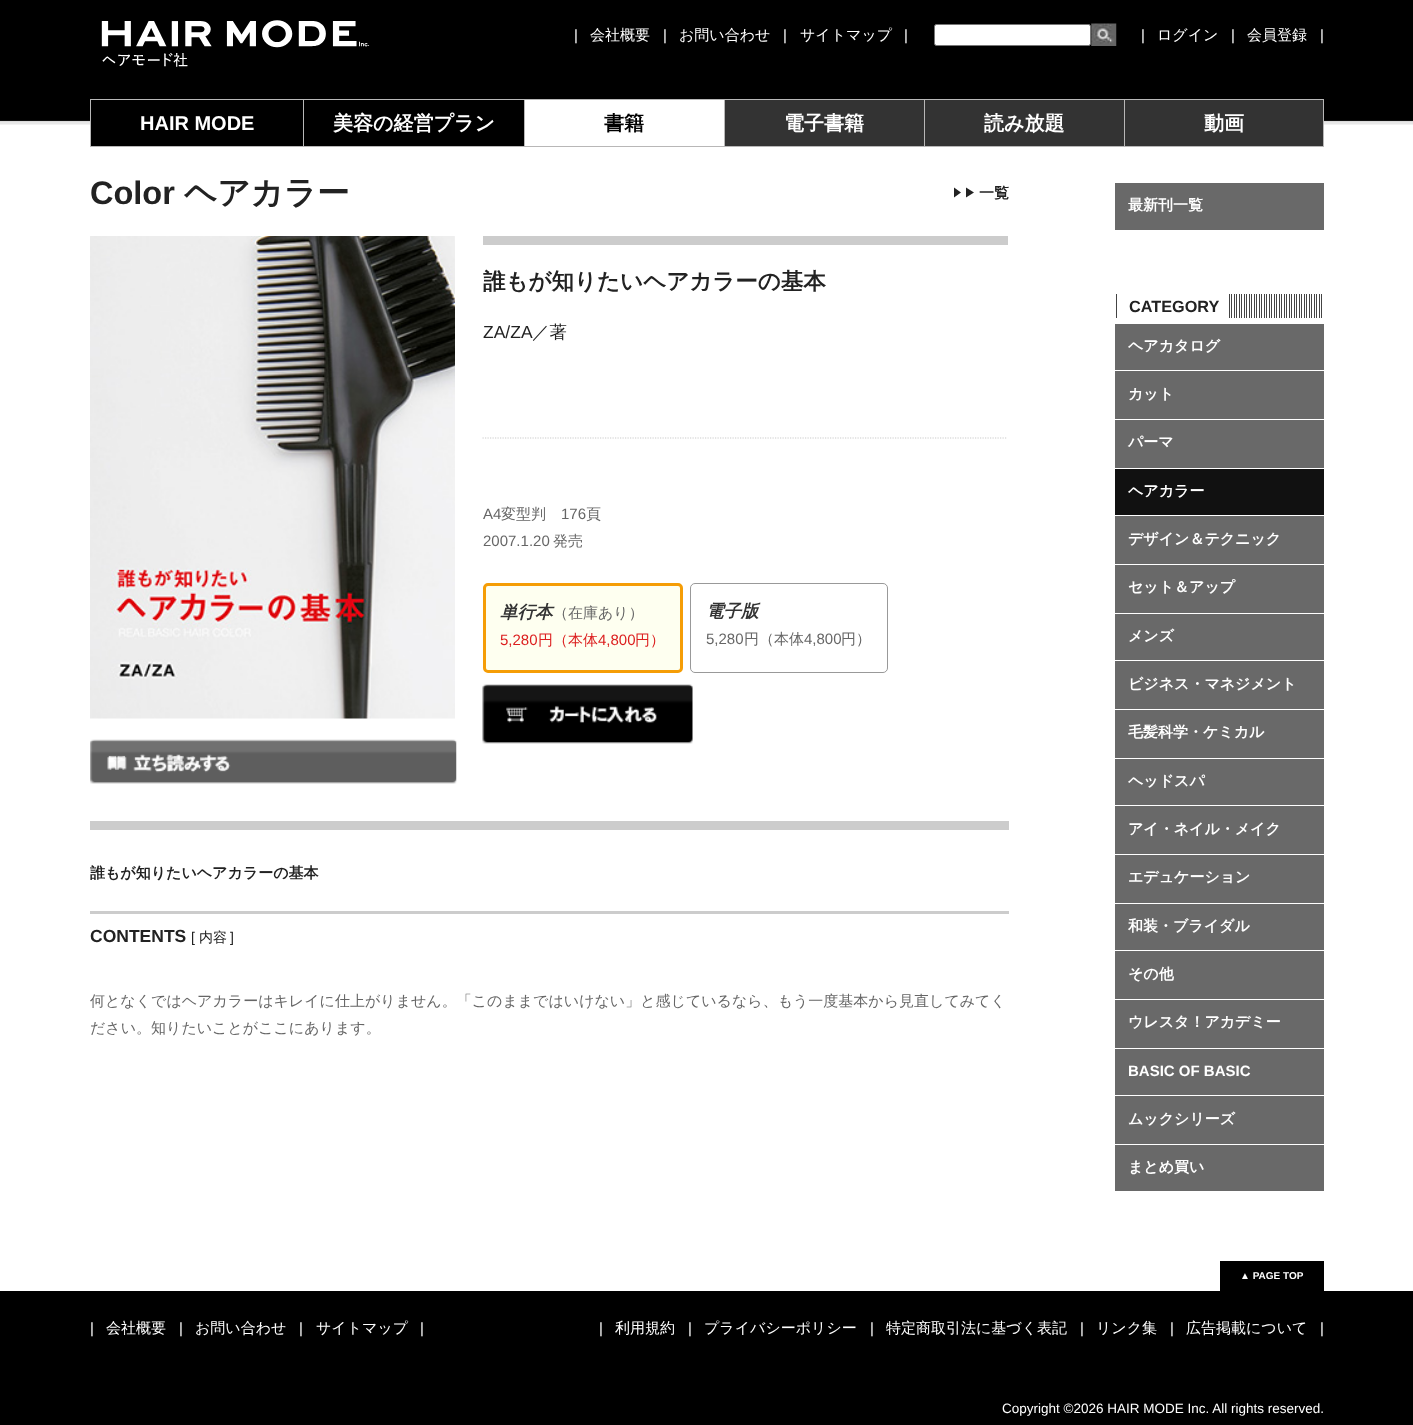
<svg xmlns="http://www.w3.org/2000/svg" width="1413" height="1425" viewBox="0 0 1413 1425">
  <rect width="100%" height="100%" fill="rgb(255,255,255)"/>
  <rect x="0" y="0" width="1413" height="99" fill="rgb(0,0,0)"/>
  <image x="101" y="20" width="269" height="47" href="pic1.png"/>
  <text x="574" y="40" font-family="Liberation Sans" font-size="15" fill="rgb(255,255,255)">|</text>
  <text x="590" y="40" font-family="WenQuanYi Zen Hei" font-size="15" font-weight="500" fill="rgb(255,255,255)">会社概要</text>
  <text x="663" y="40" font-family="Liberation Sans" font-size="15" fill="rgb(255,255,255)">|</text>
  <text x="679" y="40" font-family="WenQuanYi Zen Hei" font-size="15" font-weight="500" fill="rgb(255,255,255)">お問い合わせ</text>
  <text x="783" y="40" font-family="Liberation Sans" font-size="15" fill="rgb(255,255,255)">|</text>
  <text x="800" y="40" font-family="WenQuanYi Zen Hei" font-size="15" font-weight="500" fill="rgb(255,255,255)">サイトマップ</text>
  <text x="904" y="40" font-family="Liberation Sans" font-size="15" fill="rgb(255,255,255)">|</text>
  <rect x="934.5" y="24.5" width="156" height="21" rx="2" fill="rgb(255,255,255)" stroke="rgb(118,118,118)"/>
  <image x="1091" y="23" width="26" height="23" href="pic2.png"/>
  <text x="1141" y="40" font-family="Liberation Sans" font-size="15" fill="rgb(255,255,255)">|</text>
  <text x="1157" y="40" font-family="WenQuanYi Zen Hei" font-size="15" font-weight="500" fill="rgb(255,255,255)">ログイン</text>
  <text x="1231" y="40" font-family="Liberation Sans" font-size="15" fill="rgb(255,255,255)">|</text>
  <text x="1247" y="40" font-family="WenQuanYi Zen Hei" font-size="15" font-weight="500" fill="rgb(255,255,255)">会員登録</text>
  <text x="1320" y="40" font-family="Liberation Sans" font-size="15" fill="rgb(255,255,255)">|</text>
  <image x="0" y="99" width="1413" height="26" href="pic3.png"/>
  <rect x="90" y="99" width="1234" height="1" fill="rgb(184,183,183)"/>
  <rect x="90" y="146" width="1234" height="1" fill="rgb(184,183,183)"/>
  <rect x="91" y="120" width="212" height="26" fill="rgb(0,0,0)"/>
  <rect x="90" y="100" width="1" height="46" fill="rgb(184,183,183)"/>
  <text x="140" y="130" font-family="Liberation Sans" font-size="20" font-weight="bold" fill="rgb(255,255,255)">HAIR MODE</text>
  <rect x="304" y="120" width="220" height="26" fill="rgb(0,0,0)"/>
  <rect x="303" y="100" width="1" height="46" fill="rgb(184,183,183)"/>
  <text x="333" y="130" font-family="WenQuanYi Zen Hei" font-size="20" font-weight="bold" fill="rgb(255,255,255)">美容の経営プラン</text>
  <rect x="525" y="100" width="199" height="25" fill="rgb(255,255,255)"/>
  <rect x="524" y="100" width="1" height="46" fill="rgb(184,183,183)"/>
  <text x="604" y="130" font-family="WenQuanYi Zen Hei" font-size="20" font-weight="bold" fill="rgb(0,0,0)">書籍</text>
  <rect x="725" y="100" width="199" height="46" fill="rgb(51,51,51)"/>
  <rect x="724" y="100" width="1" height="46" fill="rgb(184,183,183)"/>
  <text x="784" y="130" font-family="WenQuanYi Zen Hei" font-size="20" font-weight="bold" fill="rgb(255,255,255)">電子書籍</text>
  <rect x="925" y="100" width="199" height="46" fill="rgb(51,51,51)"/>
  <rect x="924" y="100" width="1" height="46" fill="rgb(184,183,183)"/>
  <text x="984" y="130" font-family="WenQuanYi Zen Hei" font-size="20" font-weight="bold" fill="rgb(255,255,255)">読み放題</text>
  <rect x="1125" y="100" width="198" height="46" fill="rgb(51,51,51)"/>
  <rect x="1323" y="100" width="1" height="46" fill="rgb(184,183,183)"/>
  <rect x="1124" y="100" width="1" height="46" fill="rgb(184,183,183)"/>
  <text x="1204" y="130" font-family="WenQuanYi Zen Hei" font-size="20" font-weight="bold" fill="rgb(255,255,255)">動画</text>
  <text x="90" y="204" font-family="Liberation Sans" font-size="32.5" font-weight="bold" fill="rgb(34,34,34)">Color</text>
  <text x="184" y="204" font-family="WenQuanYi Zen Hei" font-size="32.5" font-weight="bold" fill="rgb(34,34,34)">ヘアカラー</text>
  <path d="M954 197.5V187.5L961 192.5ZM966 197.5V187.5L974 192.5Z" fill="rgb(34,34,34)"/>
  <text x="979" y="198" font-family="WenQuanYi Zen Hei" font-size="15" font-weight="bold" fill="rgb(34,34,34)">一覧</text>
  <image x="90" y="236" width="365" height="483" href="pic4.png"/>
  <image x="90" y="739" width="367" height="45" href="pic5.png"/>
  <rect x="483" y="236" width="525" height="9" fill="rgb(204,204,204)"/>
  <path d="M482.5 438H1007.5" fill="none" stroke="rgb(204,204,204)" stroke-width="1.2" stroke-dasharray="1.25 1.25"/>
  <text x="483" y="289" font-family="WenQuanYi Zen Hei" font-size="22.5" font-weight="bold" fill="rgb(34,34,34)">誰もが知りたいヘアカラーの基本</text>
  <text x="483" y="338" font-family="Liberation Sans" font-size="17.5" fill="rgb(34,34,34)">ZA/ZA</text>
  <text x="532" y="338" font-family="WenQuanYi Zen Hei" font-size="17.5" font-weight="500" fill="rgb(34,34,34)">／著</text>
  <text x="483" y="519" font-family="Liberation Sans" font-size="15" fill="rgb(102,102,102)">A4</text>
  <text x="501" y="519" font-family="WenQuanYi Zen Hei" font-size="15" font-weight="500" fill="rgb(102,102,102)">変型判</text>
  <text x="561" y="519" font-family="Liberation Sans" font-size="15" fill="rgb(102,102,102)">176</text>
  <text x="586" y="519" font-family="WenQuanYi Zen Hei" font-size="15" font-weight="500" fill="rgb(102,102,102)">頁</text>
  <text x="483" y="546" font-family="Liberation Sans" font-size="15" fill="rgb(102,102,102)">2007.1.20</text>
  <text x="553" y="546" font-family="WenQuanYi Zen Hei" font-size="15" font-weight="500" fill="rgb(102,102,102)">発売</text>
  <rect x="484.5" y="584.5" width="197" height="87" rx="3.5" fill="rgb(254,255,240)" stroke="rgb(245,157,6)" stroke-width="3"/>
  <text x="500" y="618" font-family="WenQuanYi Zen Hei" font-size="17.5" font-weight="bold" font-style="italic" fill="rgb(51,51,51)">単行本</text>
  <text x="553" y="618" font-family="WenQuanYi Zen Hei" font-size="15" font-weight="500" fill="rgb(102,102,102)">（在庫あり）</text>
  <text x="500" y="645" font-family="Liberation Sans" font-size="15" fill="rgb(220,30,30)">5,280</text>
  <text x="538" y="645" font-family="WenQuanYi Zen Hei" font-size="15" font-weight="500" fill="rgb(220,30,30)">円（本体</text>
  <text x="598" y="645" font-family="Liberation Sans" font-size="15" fill="rgb(220,30,30)">4,800</text>
  <text x="635" y="645" font-family="WenQuanYi Zen Hei" font-size="15" font-weight="500" fill="rgb(220,30,30)">円）</text>
  <rect x="690.5" y="583.5" width="197" height="89" rx="4.5" fill="none" stroke="rgb(153,153,153)"/>
  <text x="706" y="617" font-family="WenQuanYi Zen Hei" font-size="17.5" font-weight="bold" font-style="italic" fill="rgb(51,51,51)">電子版</text>
  <text x="706" y="644" font-family="Liberation Sans" font-size="15" fill="rgb(102,102,102)">5,280</text>
  <text x="744" y="644" font-family="WenQuanYi Zen Hei" font-size="15" font-weight="500" fill="rgb(102,102,102)">円（本体</text>
  <text x="804" y="644" font-family="Liberation Sans" font-size="15" fill="rgb(102,102,102)">4,800</text>
  <text x="841" y="644" font-family="WenQuanYi Zen Hei" font-size="15" font-weight="500" fill="rgb(102,102,102)">円）</text>
  <image x="482" y="684" width="211" height="60" href="pic6.png"/>
  <rect x="90" y="821" width="919" height="9" fill="rgb(204,204,204)"/>
  <text x="90" y="878" font-family="WenQuanYi Zen Hei" font-size="15" font-weight="bold" fill="rgb(34,34,34)">誰もが知りたいヘアカラーの基本</text>
  <rect x="90" y="911" width="919" height="3" fill="rgb(204,204,204)"/>
  <text x="90" y="942" font-family="Liberation Sans" font-size="17.5" font-weight="bold" fill="rgb(34,34,34)">CONTENTS</text>
  <text x="191" y="942" font-family="Liberation Sans" font-size="14" fill="rgb(34,34,34)">[</text>
  <text x="199" y="942" font-family="WenQuanYi Zen Hei" font-size="14" font-weight="500" fill="rgb(34,34,34)">内容</text>
  <text x="230" y="942" font-family="Liberation Sans" font-size="14" fill="rgb(34,34,34)">]</text>
  <g font-family="WenQuanYi Zen Hei" font-size="15" font-weight="500" fill="rgb(102,102,102)">
    <text>
      <tspan x="90" y="1006">何となくではヘアカラーはキレイに仕上がりません。「このままではいけない」と感じているなら、もう一度基本から見直してみてく</tspan>
      <tspan x="90" y="1033">ださい。知りたいことがここにあります。</tspan>
    </text>
  </g>
  <rect x="1115" y="183" width="209" height="47" fill="rgb(105,105,105)"/>
  <text x="1128" y="210" font-family="WenQuanYi Zen Hei" font-size="15" font-weight="bold" fill="rgb(255,255,255)">最新刊一覧</text>
  <image x="1116" y="294" width="206" height="24" href="pic7.png"/>
  <rect x="1119" y="294" width="108" height="24" fill="rgb(255,255,255)"/>
  <text x="1129" y="312" font-family="Liberation Sans" font-size="16.25" font-weight="bold" fill="rgb(34,34,34)">CATEGORY</text>
  <rect x="1115" y="324" width="209" height="46" fill="rgb(105,105,105)"/>
  <text x="1128" y="351" font-family="WenQuanYi Zen Hei" font-size="15" font-weight="bold" fill="rgb(255,255,255)">ヘアカタログ</text>
  <rect x="1115" y="371" width="209" height="48" fill="rgb(105,105,105)"/>
  <text x="1128" y="399" font-family="WenQuanYi Zen Hei" font-size="15" font-weight="bold" fill="rgb(255,255,255)">カット</text>
  <rect x="1115" y="420" width="209" height="48" fill="rgb(105,105,105)"/>
  <text x="1128" y="447" font-family="WenQuanYi Zen Hei" font-size="15" font-weight="bold" fill="rgb(255,255,255)">パーマ</text>
  <rect x="1115" y="469" width="209" height="46" fill="rgb(17,17,17)"/>
  <text x="1128" y="496" font-family="WenQuanYi Zen Hei" font-size="15" font-weight="bold" fill="rgb(255,255,255)">ヘアカラー</text>
  <rect x="1115" y="516" width="209" height="48" fill="rgb(105,105,105)"/>
  <text x="1128" y="544" font-family="WenQuanYi Zen Hei" font-size="15" font-weight="bold" fill="rgb(255,255,255)">デザイン＆テクニック</text>
  <rect x="1115" y="565" width="209" height="48" fill="rgb(105,105,105)"/>
  <text x="1128" y="592" font-family="WenQuanYi Zen Hei" font-size="15" font-weight="bold" fill="rgb(255,255,255)">セット＆アップ</text>
  <rect x="1115" y="614" width="209" height="46" fill="rgb(105,105,105)"/>
  <text x="1128" y="641" font-family="WenQuanYi Zen Hei" font-size="15" font-weight="bold" fill="rgb(255,255,255)">メンズ</text>
  <rect x="1115" y="661" width="209" height="48" fill="rgb(105,105,105)"/>
  <text x="1128" y="689" font-family="WenQuanYi Zen Hei" font-size="15" font-weight="bold" fill="rgb(255,255,255)">ビジネス・マネジメント</text>
  <rect x="1115" y="710" width="209" height="48" fill="rgb(105,105,105)"/>
  <text x="1128" y="737" font-family="WenQuanYi Zen Hei" font-size="15" font-weight="bold" fill="rgb(255,255,255)">毛髪科学・ケミカル</text>
  <rect x="1115" y="759" width="209" height="46" fill="rgb(105,105,105)"/>
  <text x="1128" y="786" font-family="WenQuanYi Zen Hei" font-size="15" font-weight="bold" fill="rgb(255,255,255)">ヘッドスパ</text>
  <rect x="1115" y="806" width="209" height="48" fill="rgb(105,105,105)"/>
  <text x="1128" y="834" font-family="WenQuanYi Zen Hei" font-size="15" font-weight="bold" fill="rgb(255,255,255)">アイ・ネイル・メイク</text>
  <rect x="1115" y="855" width="209" height="48" fill="rgb(105,105,105)"/>
  <text x="1128" y="882" font-family="WenQuanYi Zen Hei" font-size="15" font-weight="bold" fill="rgb(255,255,255)">エデュケーション</text>
  <rect x="1115" y="904" width="209" height="46" fill="rgb(105,105,105)"/>
  <text x="1128" y="931" font-family="WenQuanYi Zen Hei" font-size="15" font-weight="bold" fill="rgb(255,255,255)">和装・ブライダル</text>
  <rect x="1115" y="951" width="209" height="48" fill="rgb(105,105,105)"/>
  <text x="1128" y="979" font-family="WenQuanYi Zen Hei" font-size="15" font-weight="bold" fill="rgb(255,255,255)">その他</text>
  <rect x="1115" y="1000" width="209" height="48" fill="rgb(105,105,105)"/>
  <text x="1128" y="1027" font-family="WenQuanYi Zen Hei" font-size="15" font-weight="bold" fill="rgb(255,255,255)">ウレスタ！アカデミー</text>
  <rect x="1115" y="1049" width="209" height="46" fill="rgb(105,105,105)"/>
  <text x="1128" y="1076" font-family="Liberation Sans" font-size="15" font-weight="bold" fill="rgb(255,255,255)">BASIC OF BASIC</text>
  <rect x="1115" y="1096" width="209" height="48" fill="rgb(105,105,105)"/>
  <text x="1128" y="1124" font-family="WenQuanYi Zen Hei" font-size="15" font-weight="bold" fill="rgb(255,255,255)">ムックシリーズ</text>
  <rect x="1115" y="1145" width="209" height="46" fill="rgb(105,105,105)"/>
  <text x="1128" y="1172" font-family="WenQuanYi Zen Hei" font-size="15" font-weight="bold" fill="rgb(255,255,255)">まとめ買い</text>
  <rect x="1220" y="1261" width="104" height="30" fill="rgb(0,0,0)"/>
  <text x="1240" y="1279" font-family="Liberation Sans" font-size="10" font-weight="bold" fill="rgb(255,255,255)">▲ PAGE TOP</text>
  <rect x="0" y="1291" width="1413" height="134" fill="rgb(0,0,0)"/>
  <text x="90" y="1333" font-family="Liberation Sans" font-size="15" fill="rgb(255,255,255)">|</text>
  <text x="106" y="1333" font-family="WenQuanYi Zen Hei" font-size="15" font-weight="500" fill="rgb(255,255,255)">会社概要</text>
  <text x="179" y="1333" font-family="Liberation Sans" font-size="15" fill="rgb(255,255,255)">|</text>
  <text x="195" y="1333" font-family="WenQuanYi Zen Hei" font-size="15" font-weight="500" fill="rgb(255,255,255)">お問い合わせ</text>
  <text x="299" y="1333" font-family="Liberation Sans" font-size="15" fill="rgb(255,255,255)">|</text>
  <text x="316" y="1333" font-family="WenQuanYi Zen Hei" font-size="15" font-weight="500" fill="rgb(255,255,255)">サイトマップ</text>
  <g font-family="Liberation Sans" font-size="15" fill="rgb(255,255,255)">
    <text x="420" y="1333">|</text>
    <text x="599" y="1333">|</text>
  </g>
  <text x="615" y="1333" font-family="WenQuanYi Zen Hei" font-size="15" font-weight="500" fill="rgb(255,255,255)">利用規約</text>
  <text x="688" y="1333" font-family="Liberation Sans" font-size="15" fill="rgb(255,255,255)">|</text>
  <text x="704" y="1333" font-family="WenQuanYi Zen Hei" font-size="15" font-weight="500" fill="rgb(255,255,255)">プライバシーポリシー</text>
  <text x="870" y="1333" font-family="Liberation Sans" font-size="15" fill="rgb(255,255,255)">|</text>
  <text x="886" y="1333" font-family="WenQuanYi Zen Hei" font-size="15" font-weight="500" fill="rgb(255,255,255)">特定商取引法に基づく表記</text>
  <text x="1080" y="1333" font-family="Liberation Sans" font-size="15" fill="rgb(255,255,255)">|</text>
  <text x="1096" y="1333" font-family="WenQuanYi Zen Hei" font-size="15" font-weight="500" fill="rgb(255,255,255)">リンク集</text>
  <text x="1170" y="1333" font-family="Liberation Sans" font-size="15" fill="rgb(255,255,255)">|</text>
  <text x="1186" y="1333" font-family="WenQuanYi Zen Hei" font-size="15" font-weight="500" fill="rgb(255,255,255)">広告掲載について</text>
  <text x="1320" y="1333" font-family="Liberation Sans" font-size="15" fill="rgb(255,255,255)">|</text>
  <text x="1002" y="1413" font-family="Liberation Sans" font-size="13.5" fill="rgb(255,255,255)">Copyright ©2026 HAIR MODE Inc. All rights reserved.</text>
</svg>
